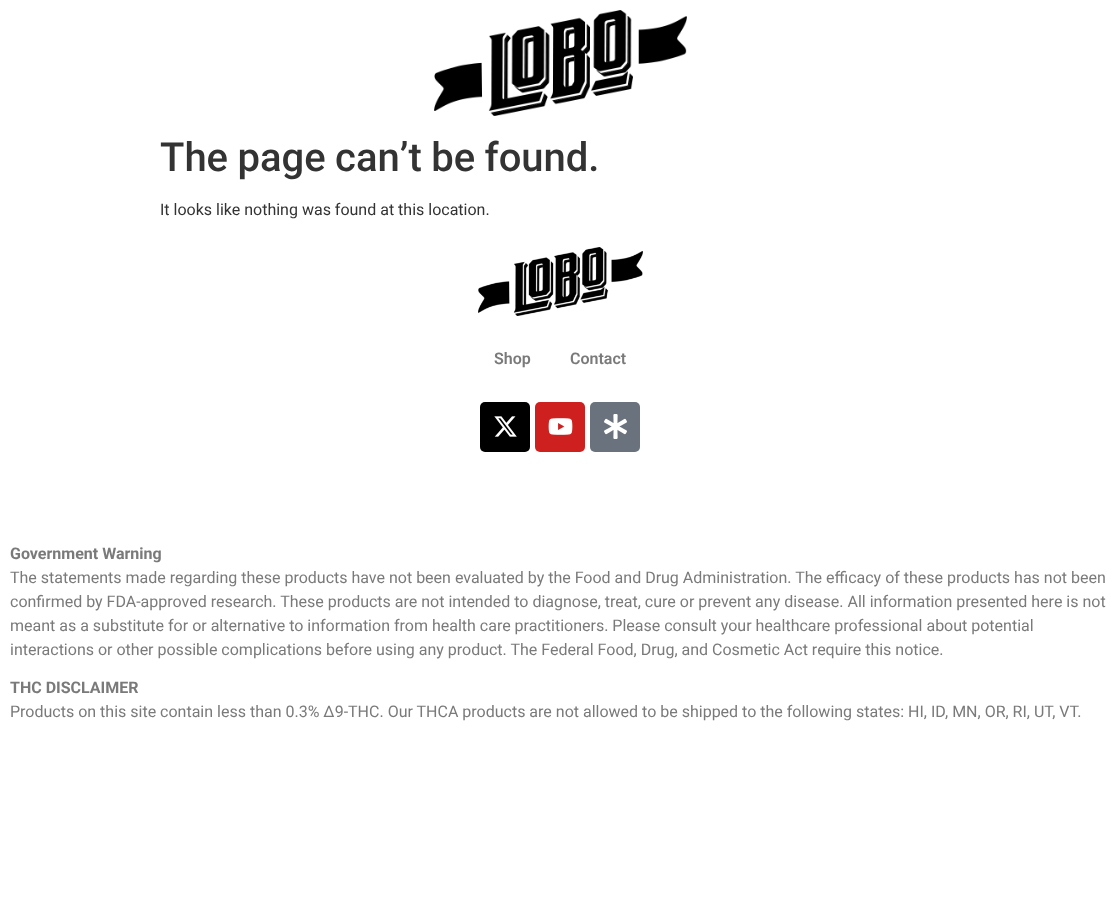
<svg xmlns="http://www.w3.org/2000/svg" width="1120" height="915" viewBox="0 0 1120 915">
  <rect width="100%" height="100%" fill="rgb(255,255,255)"/>
  <image x="434" y="10" width="253" height="106" href="pic1.png"/>
  <text x="160" y="171" word-spacing="-0.5" font-family="Roboto" font-size="40" font-weight="500" fill="rgb(51,51,51)">The page can’t be found.</text>
  <text x="160" y="215" font-family="Roboto" font-size="16" fill="rgb(51,51,51)">It looks like nothing was found at this location.</text>
  <image x="478" y="247" width="165" height="69" href="pic2.png"/>
  <g font-family="Roboto" font-size="16" font-weight="600" fill="rgb(122,122,122)">
    <text x="494" y="364">Shop</text>
    <text x="570" y="364">Contact</text>
  </g>
  <rect x="480" y="402" width="50" height="50" rx="5" fill="rgb(0,0,0)"/>
  <image x="494" y="416" width="23" height="21" href="pic3.png"/>
  <rect x="535" y="402" width="50" height="50" rx="5" fill="rgb(205,32,31)"/>
  <image x="548" y="418" width="25" height="17" href="pic4.png"/>
  <rect x="590" y="402" width="50" height="50" rx="5" fill="rgb(105,114,125)"/>
  <image x="604" y="414" width="23" height="25" href="pic5.png"/>
  <text x="10" y="559" font-family="Roboto" font-size="16" font-weight="bold" fill="rgb(122,122,122)">Government Warning</text>
  <g font-family="Roboto" font-size="16" fill="rgb(122,122,122)">
    <text>
      <tspan x="10" y="583">The statements made regarding these products have not been evaluated by the Food and Drug Administration. The efficacy of these products has not been</tspan>
      <tspan x="10" y="607">confirmed by FDA-approved research. These products are not intended to diagnose, treat, cure or prevent any disease. All information presented here is not</tspan>
      <tspan x="10" y="631">meant as a substitute for or alternative to information from health care practitioners. Please consult your healthcare professional about potential</tspan>
      <tspan x="10" y="655">interactions or other possible complications before using any product. The Federal Food, Drug, and Cosmetic Act require this notice.</tspan>
    </text>
  </g>
  <text x="10" y="693" font-family="Roboto" font-size="16" font-weight="bold" fill="rgb(122,122,122)">THC DISCLAIMER</text>
  <text x="10" y="717" font-family="Roboto" font-size="16" fill="rgb(122,122,122)">Products on this site contain less than 0.3% Δ9-THC. Our THCA products are not allowed to be shipped to the following states: HI, ID, MN, OR, RI, UT, VT.</text>
</svg>
